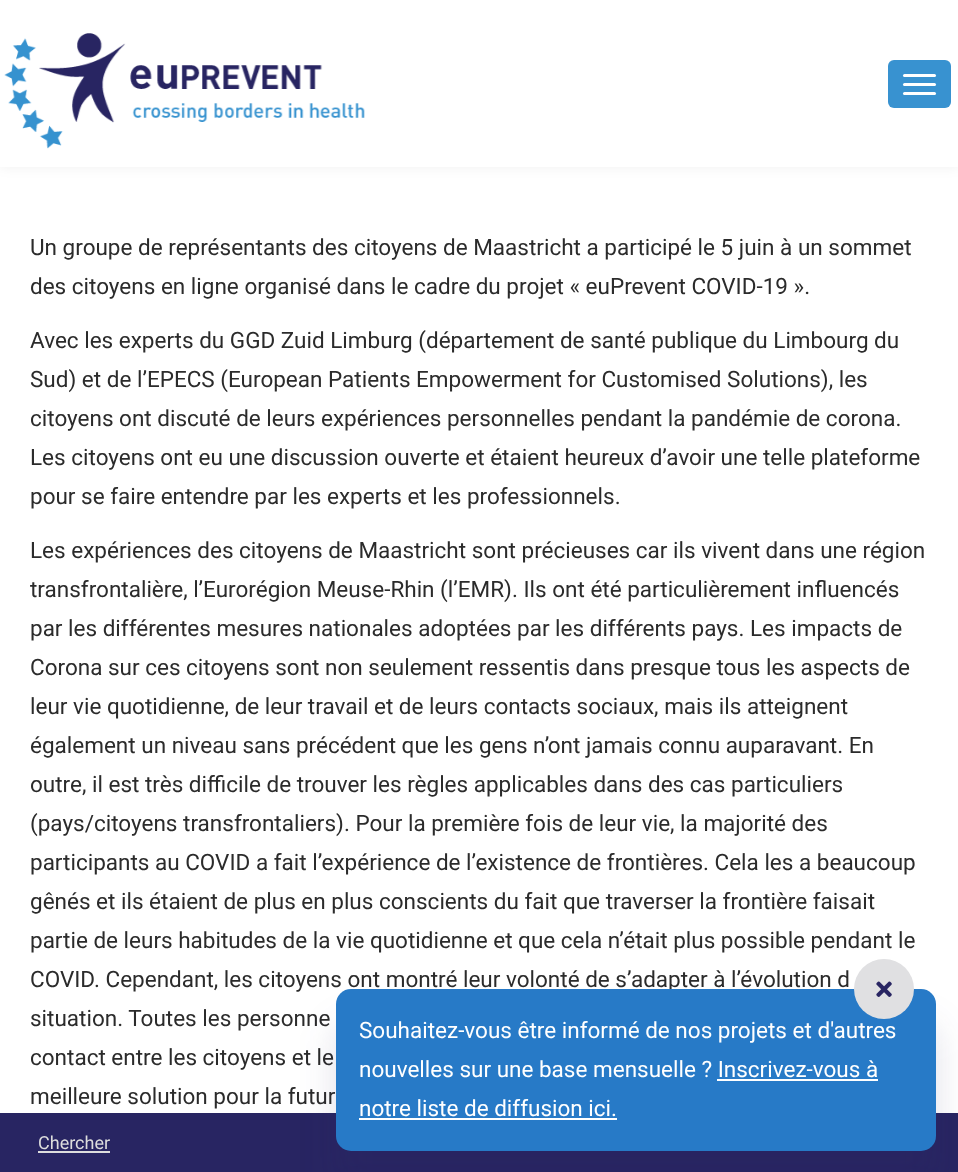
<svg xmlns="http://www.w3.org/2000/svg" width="958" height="1172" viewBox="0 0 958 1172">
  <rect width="100%" height="100%" fill="rgb(255,255,255)"/>
  <rect x="0" y="2" width="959" height="166" fill="rgba(0,0,0,0.05)" filter="blur(6px)"/>
  <rect x="0" y="0" width="958" height="167" fill="rgb(255,255,255)"/>
  <image x="4" y="33" width="361" height="116" href="pic1.png"/>
  <rect x="888" y="60" width="63" height="48" rx="6" fill="rgb(56,146,208)"/>
  <rect x="903" y="74" width="33" height="3" rx="1.5" fill="rgb(255,255,255)"/>
  <rect x="903" y="83" width="33" height="3" rx="1.5" fill="rgb(255,255,255)"/>
  <rect x="903" y="92" width="33" height="3" rx="1.5" fill="rgb(255,255,255)"/>
  <g font-family="Roboto" font-size="22.5" fill="rgb(43,43,43)">
    <text>
      <tspan x="30" y="255">Un groupe de représentants des citoyens de Maastricht a participé le 5 juin à un sommet</tspan>
      <tspan x="30" y="294">des citoyens en ligne organisé dans le cadre du projet « euPrevent COVID-19 ».</tspan>
    </text>
    <text>
      <tspan x="30" y="348">Avec les experts du GGD Zuid Limburg (département de santé publique du Limbourg du</tspan>
      <tspan x="30" y="387">Sud) et de l’EPECS (European Patients Empowerment for Customised Solutions), les</tspan>
      <tspan x="30" y="426">citoyens ont discuté de leurs expériences personnelles pendant la pandémie de corona.</tspan>
      <tspan x="30" y="465">Les citoyens ont eu une discussion ouverte et étaient heureux d’avoir une telle plateforme</tspan>
      <tspan x="30" y="504">pour se faire entendre par les experts et les professionnels.</tspan>
    </text>
    <text>
      <tspan x="30" y="558">Les expériences des citoyens de Maastricht sont précieuses car ils vivent dans une région</tspan>
      <tspan x="30" y="597">transfrontalière, l’Eurorégion Meuse-Rhin (l’EMR). Ils ont été particulièrement influencés</tspan>
      <tspan x="30" y="636">par les différentes mesures nationales adoptées par les différents pays. Les impacts de</tspan>
      <tspan x="30" y="675">Corona sur ces citoyens sont non seulement ressentis dans presque tous les aspects de</tspan>
      <tspan x="30" y="714">leur vie quotidienne, de leur travail et de leurs contacts sociaux, mais ils atteignent</tspan>
      <tspan x="30" y="753">également un niveau sans précédent que les gens n’ont jamais connu auparavant. En</tspan>
      <tspan x="30" y="792">outre, il est très difficile de trouver les règles applicables dans des cas particuliers</tspan>
      <tspan x="30" y="831">(pays/citoyens transfrontaliers). Pour la première fois de leur vie, la majorité des</tspan>
      <tspan x="30" y="870">participants au COVID a fait l’expérience de l’existence de frontières. Cela les a beaucoup</tspan>
      <tspan x="30" y="909">gênés et ils étaient de plus en plus conscients du fait que traverser la frontière faisait</tspan>
      <tspan x="30" y="948">partie de leurs habitudes de la vie quotidienne et que cela n’était plus possible pendant le</tspan>
      <tspan x="30" y="987">COVID. Cependant, les citoyens ont montré leur volonté de s’adapter à l’évolution d</tspan>
      <tspan x="30" y="1026">situation. Toutes les personne</tspan>
      <tspan x="30" y="1065">contact entre les citoyens et le</tspan>
      <tspan x="30" y="1104">meilleure solution pour la futur</tspan>
    </text>
  </g>
  <rect x="0" y="1113" width="958" height="59" fill="rgb(40,37,98)"/>
  <rect x="336" y="1025" width="600" height="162" rx="15" fill="rgba(40,37,98,0.14)" filter="blur(18px)"/>
  <rect x="336" y="989" width="600" height="162" rx="15" fill="rgb(39,122,199)"/>
  <circle cx="884" cy="989" r="30" fill="rgb(224,224,226)"/>
  <image x="876" y="981" width="16" height="16" href="pic2.png"/>
  <g font-family="Roboto" font-size="22.5" fill="rgb(255,255,255)">
    <text>
      <tspan x="359" y="1038">Souhaitez-vous être informé de nos projets et d'autres</tspan>
      <tspan x="359" y="1077">nouvelles sur une base mensuelle ? Inscrivez-vous à</tspan>
      <tspan x="359" y="1116">notre liste de diffusion ici.</tspan>
    </text>
  </g>
  <rect x="717" y="1079" width="161" height="2" fill="rgb(255,255,255)"/>
  <rect x="359" y="1118" width="258" height="2" fill="rgb(255,255,255)"/>
  <text x="38" y="1149" font-family="Roboto" font-size="18" fill="rgb(221,221,221)">Chercher</text>
  <rect x="38" y="1151" width="72" height="2" fill="rgb(221,221,221)"/>
</svg>
